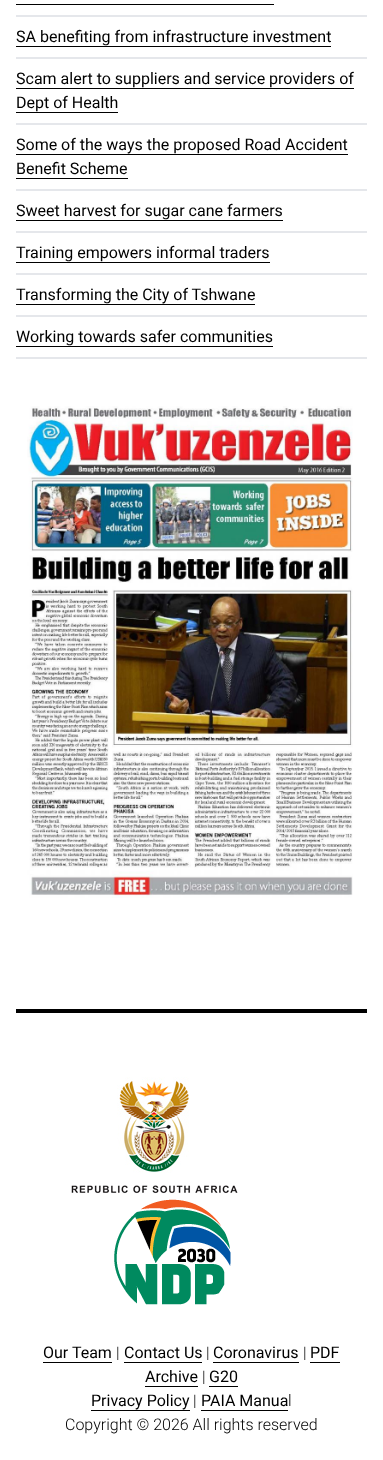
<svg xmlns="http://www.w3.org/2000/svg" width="383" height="1460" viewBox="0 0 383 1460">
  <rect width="100%" height="100%" fill="rgb(255,255,255)"/>
  <rect x="16" y="15" width="351" height="2" fill="rgb(229,231,235)"/>
  <rect x="16" y="4" width="258" height="1" fill="rgb(0,0,0)"/>
  <rect x="16" y="57" width="351" height="2" fill="rgb(229,231,235)"/>
  <text x="16" y="42" font-family="Roboto" font-size="16" fill="rgb(0,0,0)">SA benefiting from infrastructure investment</text>
  <rect x="16" y="46" width="315" height="1" fill="rgb(0,0,0)"/>
  <rect x="16" y="123" width="351" height="2" fill="rgb(229,231,235)"/>
  <text x="16" y="84" font-family="Roboto" font-size="16" fill="rgb(0,0,0)">Scam alert to suppliers and service providers of</text>
  <rect x="16" y="88" width="338" height="1" fill="rgb(0,0,0)"/>
  <text x="16" y="108" font-family="Roboto" font-size="16" fill="rgb(0,0,0)">Dept of Health</text>
  <rect x="16" y="112" width="102" height="1" fill="rgb(0,0,0)"/>
  <rect x="16" y="189" width="351" height="2" fill="rgb(229,231,235)"/>
  <text x="16" y="150" font-family="Roboto" font-size="16" fill="rgb(0,0,0)">Some of the ways the proposed Road Accident</text>
  <rect x="16" y="154" width="332" height="1" fill="rgb(0,0,0)"/>
  <text x="16" y="174" font-family="Roboto" font-size="16" fill="rgb(0,0,0)">Benefit Scheme</text>
  <rect x="16" y="178" width="112" height="1" fill="rgb(0,0,0)"/>
  <rect x="16" y="231" width="351" height="2" fill="rgb(229,231,235)"/>
  <text x="16" y="216" font-family="Roboto" font-size="16" fill="rgb(0,0,0)">Sweet harvest for sugar cane farmers</text>
  <rect x="16" y="220" width="267" height="1" fill="rgb(0,0,0)"/>
  <rect x="16" y="273" width="351" height="2" fill="rgb(229,231,235)"/>
  <text x="16" y="258" font-family="Roboto" font-size="16" fill="rgb(0,0,0)">Training empowers informal traders</text>
  <rect x="16" y="262" width="254" height="1" fill="rgb(0,0,0)"/>
  <rect x="16" y="315" width="351" height="2" fill="rgb(229,231,235)"/>
  <text x="16" y="300" font-family="Roboto" font-size="16" fill="rgb(0,0,0)">Transforming the City of Tshwane</text>
  <rect x="16" y="304" width="239" height="1" fill="rgb(0,0,0)"/>
  <rect x="16" y="357" width="351" height="2" fill="rgb(229,231,235)"/>
  <text x="16" y="342" font-family="Roboto" font-size="16" fill="rgb(0,0,0)">Working towards safer communities</text>
  <rect x="16" y="346" width="257" height="1" fill="rgb(0,0,0)"/>
  <image x="27" y="406" width="326" height="492" href="pic1.png"/>
  <rect x="16" y="1009" width="351" height="4" fill="rgb(0,0,0)"/>
  <image x="71" y="1077" width="167" height="117" href="pic2.png"/>
  <image x="114" y="1199" width="117" height="106" href="pic3.png"/>
  <text x="43" y="1358" font-family="Roboto" font-size="16" fill="rgb(0,0,0)">Our Team</text>
  <rect x="43" y="1362" width="69" height="1" fill="rgb(0,0,0)"/>
  <text x="116" y="1358" font-family="Roboto" font-size="16" font-weight="300" fill="rgb(0,0,0)">|</text>
  <text x="124" y="1358" font-family="Roboto" font-size="16" fill="rgb(0,0,0)">Contact Us</text>
  <rect x="124" y="1362" width="78" height="1" fill="rgb(0,0,0)"/>
  <text x="206" y="1358" font-family="Roboto" font-size="16" font-weight="300" fill="rgb(0,0,0)">|</text>
  <text x="213" y="1358" font-family="Roboto" font-size="16" fill="rgb(0,0,0)">Coronavirus</text>
  <rect x="213" y="1362" width="86" height="1" fill="rgb(0,0,0)"/>
  <text x="303" y="1358" font-family="Roboto" font-size="16" font-weight="300" fill="rgb(0,0,0)">|</text>
  <text x="310" y="1358" font-family="Roboto" font-size="16" fill="rgb(0,0,0)">PDF</text>
  <rect x="310" y="1362" width="30" height="1" fill="rgb(0,0,0)"/>
  <text x="145" y="1382" font-family="Roboto" font-size="16" fill="rgb(0,0,0)">Archive</text>
  <rect x="145" y="1386" width="53" height="1" fill="rgb(0,0,0)"/>
  <text x="202" y="1382" font-family="Roboto" font-size="16" font-weight="300" fill="rgb(0,0,0)">|</text>
  <text x="209" y="1382" font-family="Roboto" font-size="16" fill="rgb(0,0,0)">G20</text>
  <rect x="209" y="1386" width="29" height="1" fill="rgb(0,0,0)"/>
  <text x="91" y="1406" font-family="Roboto" font-size="16" fill="rgb(0,0,0)">Privacy Policy</text>
  <rect x="91" y="1410" width="99" height="1" fill="rgb(0,0,0)"/>
  <text x="193" y="1406" font-family="Roboto" font-size="16" font-weight="300" fill="rgb(0,0,0)">|</text>
  <text x="201" y="1406" font-family="Roboto" font-size="16" fill="rgb(0,0,0)">PAIA Manua</text>
  <rect x="201" y="1410" width="87" height="1" fill="rgb(0,0,0)"/>
  <g font-family="Roboto" font-size="16" font-weight="300" fill="rgb(0,0,0)">
    <text x="288" y="1406">l</text>
    <text x="65" y="1430">Copyright © 2026 All rights reserved</text>
  </g>
</svg>
